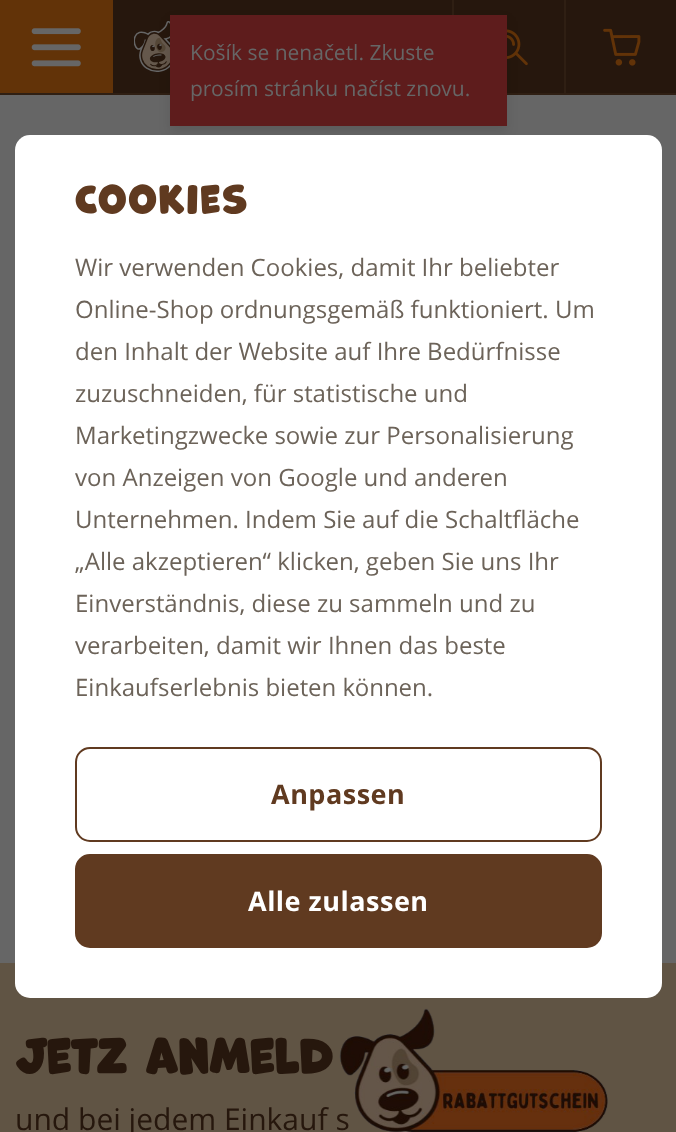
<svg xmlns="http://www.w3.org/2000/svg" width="676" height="1132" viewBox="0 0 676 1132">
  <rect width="100%" height="100%" fill="rgb(102,102,102)"/>
  <rect x="113" y="0" width="563" height="93" fill="rgb(38,23,13)"/>
  <rect x="0" y="93" width="676" height="2" fill="rgb(47,31,19)"/>
  <rect x="0" y="0" width="113" height="93" fill="rgb(98,51,8)"/>
  <image x="31" y="28" width="50" height="39" href="pic1.png"/>
  <image x="134" y="21" width="36" height="51" href="pic2.png"/>
  <rect x="452" y="0" width="2" height="15" fill="rgb(47,31,19)"/>
  <image x="507" y="29" width="21" height="37" href="pic3.png"/>
  <rect x="564" y="0" width="2" height="93" fill="rgb(47,31,19)"/>
  <image x="603" y="28" width="38" height="38" href="pic4.png"/>
  <rect x="170" y="21" width="337" height="111" fill="rgba(0,0,0,0.1)" filter="blur(6px)"/>
  <rect x="170" y="15" width="337" height="111" fill="rgb(94,28,28)"/>
  <g font-family="Open Sans" font-size="21" fill="rgb(102,102,102)">
    <text>
      <tspan x="190" y="60">Košík se nenačetl. Zkuste</tspan>
      <tspan x="190" y="96">prosím stránku načíst znovu.</tspan>
    </text>
  </g>
  <rect x="0" y="963" width="676" height="169" fill="rgb(96,84,68)"/>
  <rect x="15" y="135" width="647" height="863" rx="15" fill="rgb(255,255,255)"/>
  <text x="75" y="213" font-family="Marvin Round" font-size="36" font-weight="bold" letter-spacing="2.25" fill="rgb(96,58,32)">Cookies</text>
  <g font-family="Open Sans" font-size="24" fill="rgb(108,99,89)">
    <text>
      <tspan x="75" y="276">Wir verwenden Cookies, damit Ihr beliebter</tspan>
      <tspan x="75" y="318">Online-Shop ordnungsgemäß funktioniert. Um</tspan>
      <tspan x="75" y="360">den Inhalt der Website auf Ihre Bedürfnisse</tspan>
      <tspan x="75" y="402">zuzuschneiden, für statistische und</tspan>
      <tspan x="75" y="444">Marketingzwecke sowie zur Personalisierung</tspan>
      <tspan x="75" y="486">von Anzeigen von Google und anderen</tspan>
      <tspan x="75" y="528">Unternehmen. Indem Sie auf die Schaltfläche</tspan>
      <tspan x="75" y="570">„Alle akzeptieren“ klicken, geben Sie uns Ihr</tspan>
      <tspan x="75" y="612">Einverständnis, diese zu sammeln und zu</tspan>
      <tspan x="75" y="654">verarbeiten, damit wir Ihnen das beste</tspan>
      <tspan x="75" y="696">Einkaufserlebnis bieten können.</tspan>
    </text>
  </g>
  <rect x="76" y="748" width="525" height="93" rx="14" fill="none" stroke="rgb(96,58,32)" stroke-width="2"/>
  <text x="271" y="804" font-family="Open Sans" font-size="27" font-weight="bold" letter-spacing="0.5" fill="rgb(96,58,32)">Anpassen</text>
  <rect x="76" y="855" width="525" height="92" rx="14" fill="rgb(96,58,32)" stroke="rgb(96,58,32)" stroke-width="2"/>
  <text x="248" y="911" font-family="Open Sans" font-size="27" font-weight="bold" letter-spacing="0.5" fill="rgb(255,255,255)">Alle zulassen</text>
  <text x="15" y="1073" font-family="Marvin Round" font-size="45" font-weight="bold" fill="rgb(38,23,13)">Jetz anmeld</text>
  <text x="15" y="1130" font-family="Open Sans" font-size="30" fill="rgb(38,23,13)">und bei jedem Einkauf s</text>
  <image x="339" y="1008" width="269" height="124" href="pic5.png"/>
</svg>
